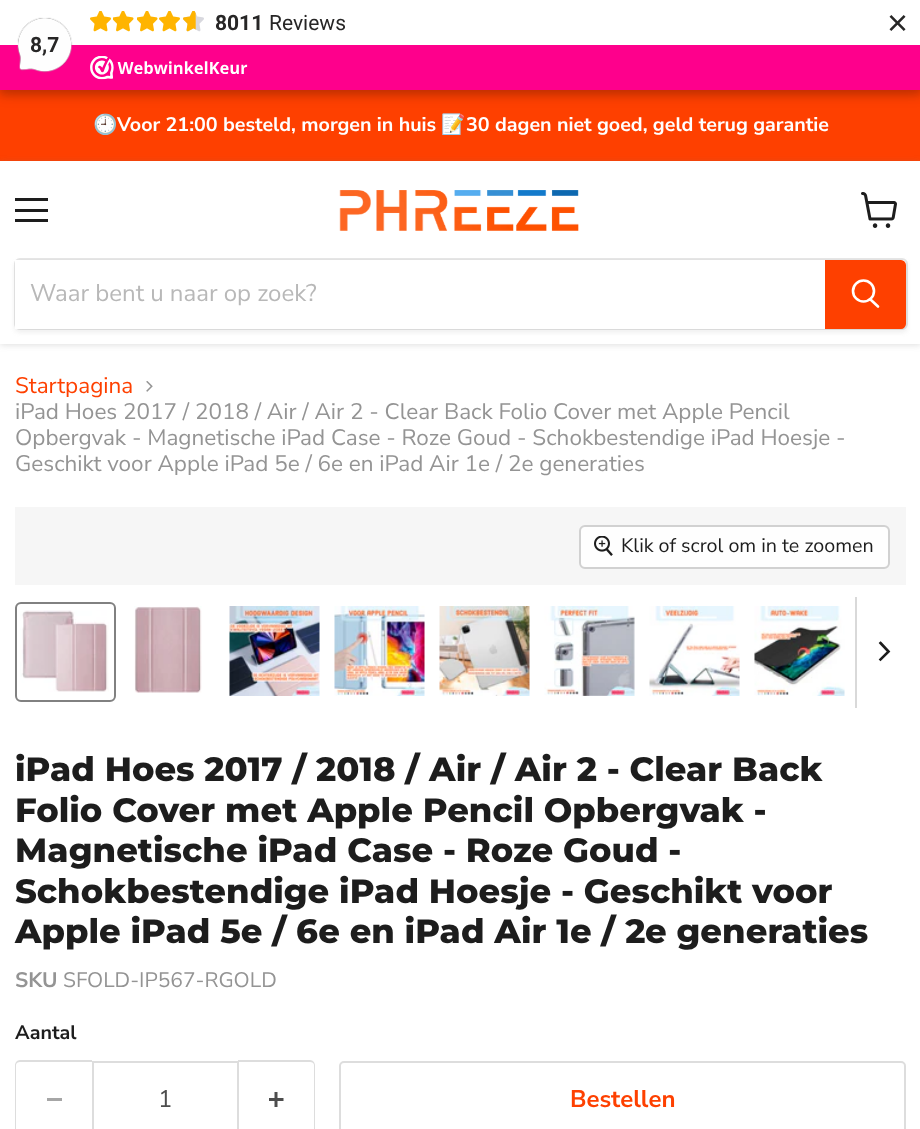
<svg xmlns="http://www.w3.org/2000/svg" width="920" height="1129" viewBox="0 0 920 1129">
  <rect width="100%" height="100%" fill="rgb(255,255,255)"/>
  <rect x="0" y="90" width="920" height="71" fill="rgb(254,64,0)"/>
  <rect x="-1" y="-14" width="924" height="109" fill="rgba(0,0,0,0.15)" filter="blur(4.5px)"/>
  <rect x="0" y="3" width="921" height="90" fill="rgba(0,0,0,0.15)" filter="blur(7.5px)"/>
  <rect x="0" y="0" width="920" height="45" fill="rgb(255,255,255)"/>
  <image x="90" y="11" width="21" height="21" href="pic1.png"/>
  <image x="113" y="11" width="21" height="21" href="pic2.png"/>
  <image x="137" y="11" width="21" height="21" href="pic2.png"/>
  <image x="159" y="11" width="21" height="21" href="pic1.png"/>
  <image x="183" y="11" width="21" height="21" href="pic3.png"/>
  <image x="183" y="11" width="13" height="21" href="pic4.png"/>
  <text x="215" y="30" font-family="Roboto" font-size="21" font-weight="bold" fill="rgb(39,38,38)">8011</text>
  <text x="269" y="30" font-family="Roboto" font-size="21" fill="rgb(39,38,38)">Reviews</text>
  <text x="887" y="35" font-family="Liberation Sans" font-size="36" fill="rgb(39,38,38)">×</text>
  <rect x="0" y="45" width="920" height="45" fill="rgb(254,0,140)"/>
  <image x="17" y="17" width="56" height="56" href="pic5.png"/>
  <text x="30" y="52" font-family="Roboto" font-size="21" font-weight="bold" fill="rgb(39,38,38)">8,7</text>
  <image x="90" y="56" width="158" height="24" href="pic6.png"/>
  <text x="93" y="131" font-family="Noto Color Emoji" font-size="19.7" font-weight="bold" fill="rgb(255,255,255)">🕘</text>
  <text x="117" y="131" font-family="Nunito Sans" font-size="19.7" font-weight="bold" fill="rgb(255,255,255)">Voor 21:00 besteld, morgen in huis</text>
  <text x="441" y="131" font-family="Noto Color Emoji" font-size="19.7" font-weight="bold" fill="rgb(255,255,255)">📝</text>
  <text x="466" y="131" font-family="Nunito Sans" font-size="19.7" font-weight="bold" fill="rgb(255,255,255)">30 dagen niet goed, geld terug garantie</text>
  <rect x="0" y="162" width="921" height="183" fill="rgba(128,128,128,0.25)" filter="blur(3px)"/>
  <rect x="0" y="161" width="920" height="183" fill="rgb(255,255,255)"/>
  <rect x="15" y="198" width="33" height="3" fill="rgb(29,29,29)"/>
  <rect x="15" y="209" width="33" height="3" fill="rgb(29,29,29)"/>
  <rect x="15" y="219" width="33" height="3" fill="rgb(29,29,29)"/>
  <image x="861" y="192" width="36" height="36" href="pic7.png"/>
  <image x="339" y="190" width="240" height="41" href="pic8.png"/>
  <rect x="14" y="261" width="894" height="72" rx="6" fill="rgba(128,128,128,0.11)" filter="blur(2px)"/>
  <rect x="15" y="259" width="892" height="70" rx="5" fill="none" stroke="rgba(128,128,128,0.2)" stroke-width="2"/>
  <rect x="15" y="260" width="810" height="69" fill="rgb(255,255,255)"/>
  <text x="30" y="301" font-family="Nunito Sans" font-size="24" fill="rgb(184,184,184)">Waar bent u naar op zoek?</text>
  <path d="M826 261H901C903 261 905 263 905 265V324C905 326 903 328 901 328H826Z" fill="rgb(254,64,0)" stroke="rgb(254,64,0)" stroke-width="2"/>
  <path d="M878 306.5L870.5 299.5" fill="none" stroke="rgb(255,255,255)" stroke-width="2.6" stroke-linecap="round"/>
  <circle cx="863.5" cy="291" r="10.5" fill="none" stroke="rgb(255,255,255)" stroke-width="2.6"/>
  <text x="15" y="393" font-family="Nunito Sans" font-size="22.5" fill="rgb(254,64,0)">Startpagina</text>
  <image x="146" y="381" width="7" height="11" href="pic9.png"/>
  <g font-family="Nunito Sans" font-size="22.5" fill="rgb(148,148,148)">
    <text>
      <tspan x="15" y="419">iPad Hoes 2017 / 2018 / Air / Air 2 - Clear Back Folio Cover met Apple Pencil</tspan>
      <tspan x="15" y="445">Opbergvak - Magnetische iPad Case - Roze Goud - Schokbestendige iPad Hoesje -</tspan>
      <tspan x="15" y="471">Geschikt voor Apple iPad 5e / 6e en iPad Air 1e / 2e generaties</tspan>
    </text>
  </g>
  <rect x="15" y="507" width="891" height="78" fill="rgb(246,246,246)"/>
  <rect x="580" y="526" width="309" height="42" rx="5" fill="none" stroke="rgb(209,209,209)" stroke-width="2"/>
  <rect x="581" y="527" width="307" height="40" rx="5" fill="rgba(255,255,255,0.9)"/>
  <image x="594" y="536" width="19" height="20" href="pic10.png"/>
  <text x="621" y="552" font-family="Nunito Sans" font-size="19.7" fill="rgb(29,29,29)">Klik of scrol om in te zoomen</text>
  <rect x="16" y="603" width="99" height="98" rx="5" fill="none" stroke="rgb(129,129,129)" stroke-width="2"/>
  <image x="20" y="610" width="89" height="82" href="pic11.png"/>
  <image x="134" y="606" width="68" height="87" href="pic12.png"/>
  <image x="229" y="606" width="91" height="90" href="pic13.png"/>
  <image x="334" y="606" width="91" height="90" href="pic14.png"/>
  <image x="439" y="606" width="91" height="90" href="pic15.png"/>
  <image x="544" y="606" width="91" height="90" href="pic16.png"/>
  <image x="649" y="606" width="91" height="90" href="pic17.png"/>
  <image x="754" y="606" width="91" height="90" href="pic18.png"/>
  <rect x="855" y="597" width="2" height="111" fill="rgb(217,217,217)"/>
  <path d="M888.5 651.5L880.5 643M888.5 651.5L880.5 659.5" fill="none" stroke="rgb(29,29,29)" stroke-width="2.6" stroke-linecap="square"/>
  <g font-family="Montserrat" font-size="33.75" font-weight="800" fill="rgb(29,29,29)">
    <text>
      <tspan x="15" y="781">iPad Hoes 2017 / 2018 / Air / Air 2 - Clear Back</tspan>
      <tspan x="15" y="822">Folio Cover met Apple Pencil Opbergvak -</tspan>
      <tspan x="15" y="862">Magnetische iPad Case - Roze Goud -</tspan>
      <tspan x="15" y="903">Schokbestendige iPad Hoesje - Geschikt voor</tspan>
      <tspan x="15" y="943">Apple iPad 5e / 6e en iPad Air 1e / 2e generaties</tspan>
    </text>
  </g>
  <text x="15" y="987" font-family="Nunito Sans" font-size="21" font-weight="bold" fill="rgb(148,148,148)">SKU</text>
  <text x="63" y="987" font-family="Nunito Sans" font-size="21" fill="rgb(148,148,148)">SFOLD-IP567-RGOLD</text>
  <text x="15" y="1039" font-family="Nunito Sans" font-size="19.7" font-weight="bold" fill="rgb(29,29,29)">Aantal</text>
  <path d="M20 1060H92V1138H20C17 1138 15 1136 15 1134V1065C15 1063 17 1060 20 1060ZM20 1062H92V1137H20C18 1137 16 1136 16 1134V1065C16 1063 18 1062 20 1062Z" fill="rgb(221,221,221)" fill-rule="evenodd"/>
  <rect x="47" y="1098" width="15" height="3" fill="rgb(166,166,166)"/>
  <rect x="93" y="1062" width="145" height="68" fill="none" stroke="rgb(221,221,221)" stroke-width="2"/>
  <text x="158" y="1107" font-family="Nunito Sans" font-size="24" fill="rgb(77,77,77)">1</text>
  <path d="M238 1060H310C313 1060 315 1063 315 1065V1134C315 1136 313 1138 310 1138H238ZM238 1062H310C312 1062 314 1063 314 1065V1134C314 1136 312 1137 310 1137H238Z" fill="rgb(221,221,221)" fill-rule="evenodd"/>
  <image x="269" y="1092" width="15" height="15" href="pic19.png"/>
  <rect x="340" y="1062" width="565" height="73" rx="4" fill="none" stroke="rgb(221,221,221)" stroke-width="2"/>
  <text x="570" y="1107" font-family="Nunito Sans" font-size="24" font-weight="bold" fill="rgb(254,64,0)">Bestellen</text>
</svg>
